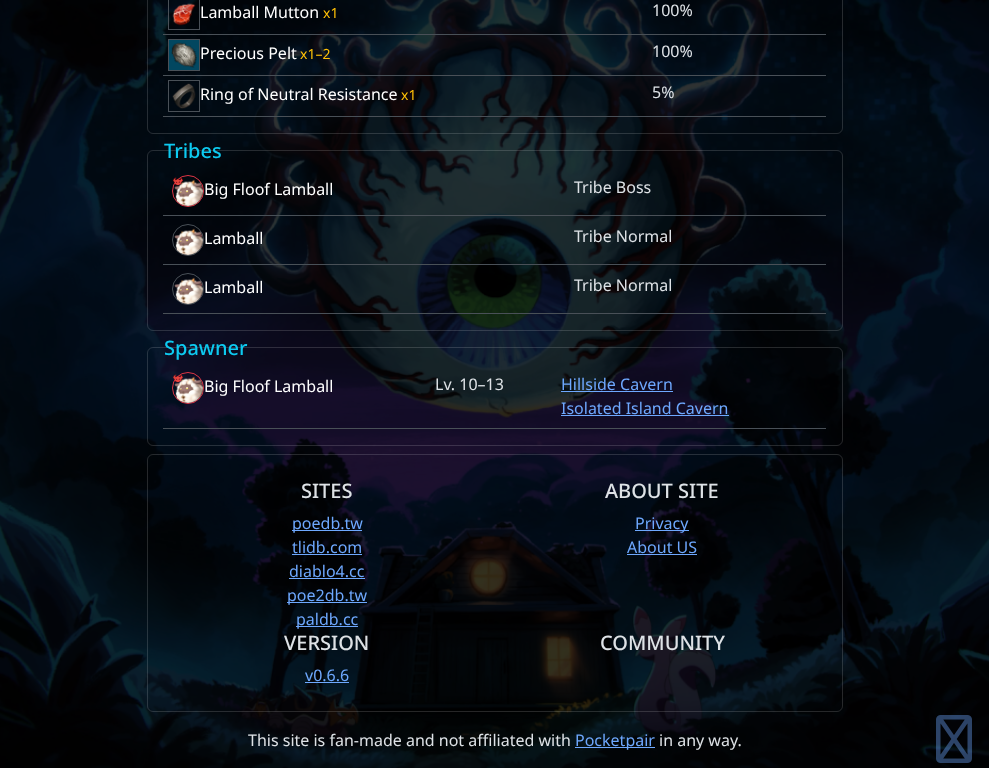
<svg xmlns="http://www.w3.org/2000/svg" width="989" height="768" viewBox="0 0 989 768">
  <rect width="100%" height="100%" fill="rgb(255,255,255)"/>
  <image x="0" y="0" width="989" height="768" href="pic1.png"/>
  <rect x="147.5" y="-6.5" width="695" height="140" rx="5.5" fill="none" stroke="rgba(255,255,255,0.15)"/>
  <rect x="168.5" y="-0.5" width="31" height="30" fill="none" stroke="rgb(73,80,87)"/>
  <image x="172" y="3" width="24" height="23" href="pic2.png"/>
  <text x="200" y="18" font-family="Noto Sans" font-size="16" fill="rgb(255,255,255)">Lamball Mutton</text>
  <text x="323" y="18" font-family="Noto Sans" font-size="14" fill="rgb(255,193,7)">x1</text>
  <rect x="163" y="34" width="663" height="1" fill="rgb(73,80,87)"/>
  <text x="652" y="16" font-family="Noto Sans" font-size="16" fill="rgb(222,226,230)">100%</text>
  <rect x="168.5" y="39.5" width="31" height="31" fill="rgb(2,71,96)" stroke="rgb(73,80,87)"/>
  <image x="171" y="42" width="26" height="26" href="pic3.png"/>
  <text x="200" y="59" font-family="Noto Sans" font-size="16" fill="rgb(255,255,255)">Precious Pelt</text>
  <text x="300" y="59" font-family="Noto Sans" font-size="14" fill="rgb(255,193,7)">x1–2</text>
  <rect x="163" y="75" width="663" height="1" fill="rgb(73,80,87)"/>
  <text x="652" y="57" font-family="Noto Sans" font-size="16" fill="rgb(222,226,230)">100%</text>
  <rect x="168.5" y="80.5" width="31" height="31" fill="none" stroke="rgb(73,80,87)"/>
  <image x="172" y="83" width="24" height="26" href="pic4.png"/>
  <text x="200" y="100" font-family="Noto Sans" font-size="16" fill="rgb(255,255,255)">Ring of Neutral Resistance</text>
  <text x="401" y="100" font-family="Noto Sans" font-size="14" fill="rgb(255,193,7)">x1</text>
  <rect x="163" y="116" width="663" height="1" fill="rgb(73,80,87)"/>
  <text x="652" y="98" font-family="Noto Sans" font-size="16" fill="rgb(222,226,230)">5%</text>
  <rect x="147.5" y="150.5" width="695" height="180" rx="5.5" fill="none" stroke="rgba(255,255,255,0.15)"/>
  <text x="164" y="158" font-family="Noto Sans" font-size="20" font-weight="500" fill="rgb(13,202,240)">Tribes</text>
  <circle cx="188" cy="191" r="15.5" fill="none" stroke="rgb(220,53,69)"/>
  <image x="174" y="179" width="29" height="27" href="pic6.png"/>
  <image x="172" y="177" width="12" height="9" href="pic5.png"/>
  <text x="204" y="195" font-family="Noto Sans" font-size="16" fill="rgb(255,255,255)">Big Floof Lamball</text>
  <rect x="163" y="215" width="663" height="1" fill="rgb(73,80,87)"/>
  <text x="574" y="193" font-family="Noto Sans" font-size="16" fill="rgb(222,226,230)">Tribe Boss</text>
  <circle cx="188" cy="240" r="15.5" fill="none" stroke="rgb(73,80,87)"/>
  <image x="174" y="228" width="29" height="27" href="pic7.png"/>
  <text x="204" y="244" font-family="Noto Sans" font-size="16" fill="rgb(255,255,255)">Lamball</text>
  <rect x="163" y="264" width="663" height="1" fill="rgb(73,80,87)"/>
  <text x="574" y="242" font-family="Noto Sans" font-size="16" fill="rgb(222,226,230)">Tribe Normal</text>
  <circle cx="188" cy="289" r="15.5" fill="none" stroke="rgb(73,80,87)"/>
  <image x="174" y="277" width="29" height="27" href="pic8.png"/>
  <text x="204" y="293" font-family="Noto Sans" font-size="16" fill="rgb(255,255,255)">Lamball</text>
  <rect x="163" y="313" width="663" height="1" fill="rgb(73,80,87)"/>
  <text x="574" y="291" font-family="Noto Sans" font-size="16" fill="rgb(222,226,230)">Tribe Normal</text>
  <rect x="147.5" y="347.5" width="695" height="98" rx="5.5" fill="none" stroke="rgba(255,255,255,0.15)"/>
  <text x="164" y="355" font-family="Noto Sans" font-size="20" font-weight="500" fill="rgb(13,202,240)">Spawner</text>
  <circle cx="188" cy="388" r="15.5" fill="none" stroke="rgb(220,53,69)"/>
  <image x="174" y="376" width="29" height="27" href="pic10.png"/>
  <image x="172" y="374" width="12" height="9" href="pic9.png"/>
  <text x="204" y="392" font-family="Noto Sans" font-size="16" fill="rgb(255,255,255)">Big Floof Lamball</text>
  <text x="435" y="390" font-family="Noto Sans" font-size="16" fill="rgb(222,226,230)">Lv. 10–13</text>
  <rect x="163" y="428" width="663" height="1" fill="rgb(73,80,87)"/>
  <text x="561" y="390" font-family="Noto Sans" font-size="16" fill="rgb(110,168,254)">Hillside Cavern</text>
  <rect x="561" y="391" width="112" height="1" fill="rgb(110,168,254)"/>
  <text x="561" y="414" font-family="Noto Sans" font-size="16" fill="rgb(110,168,254)">Isolated Island Cavern</text>
  <rect x="561" y="415" width="168" height="1" fill="rgb(110,168,254)"/>
  <rect x="147.5" y="454.5" width="695" height="257" rx="5.5" fill="none" stroke="rgba(255,255,255,0.15)"/>
  <text x="301" y="498" font-family="Noto Sans" font-size="20" font-weight="500" fill="rgb(222,226,230)">SITES</text>
  <rect x="292" y="530" width="70" height="1" fill="rgb(110,168,254)"/>
  <g font-family="Noto Sans" font-size="16" fill="rgb(110,168,254)">
    <text>
      <tspan x="292" y="529">poedb.tw</tspan>
      <tspan x="292" y="553">tlidb.com</tspan>
    </text>
  </g>
  <rect x="292" y="554" width="70" height="1" fill="rgb(110,168,254)"/>
  <text x="289" y="577" font-family="Noto Sans" font-size="16" fill="rgb(110,168,254)">diablo4.cc</text>
  <rect x="289" y="578" width="76" height="1" fill="rgb(110,168,254)"/>
  <rect x="287" y="602" width="80" height="1" fill="rgb(110,168,254)"/>
  <text x="287" y="601" font-family="Noto Sans" font-size="16" fill="rgb(110,168,254)">poe2db.tw</text>
  <rect x="296" y="626" width="62" height="1" fill="rgb(110,168,254)"/>
  <text x="296" y="625" font-family="Noto Sans" font-size="16" fill="rgb(110,168,254)">paldb.cc</text>
  <text x="605" y="498" font-family="Noto Sans" font-size="20" font-weight="500" fill="rgb(222,226,230)">ABOUT SITE</text>
  <rect x="635" y="530" width="54" height="1" fill="rgb(110,168,254)"/>
  <g font-family="Noto Sans" font-size="16" fill="rgb(110,168,254)">
    <text x="635" y="529">Privacy</text>
    <text x="627" y="553">About US</text>
  </g>
  <rect x="627" y="554" width="70" height="1" fill="rgb(110,168,254)"/>
  <text x="284" y="650" font-family="Noto Sans" font-size="20" font-weight="500" fill="rgb(222,226,230)">VERSION</text>
  <text x="305" y="681" font-family="Noto Sans" font-size="16" fill="rgb(110,168,254)">v0.6.6</text>
  <rect x="305" y="682" width="44" height="1" fill="rgb(110,168,254)"/>
  <text x="600" y="650" font-family="Noto Sans" font-size="20" font-weight="500" fill="rgb(222,226,230)">COMMUNITY</text>
  <text x="248" y="746" font-family="Noto Sans" font-size="16" fill="rgb(222,226,230)">This site is fan-made and not affiliated with</text>
  <rect x="575" y="747" width="80" height="1" fill="rgb(110,168,254)"/>
  <text x="575" y="746" font-family="Noto Sans" font-size="16" fill="rgb(110,168,254)">Pocketpair</text>
  <text x="659" y="746" font-family="Noto Sans" font-size="16" fill="rgb(222,226,230)">in any way.</text>
  <image x="936" y="715" width="36" height="48" href="pic11.png"/>
</svg>
